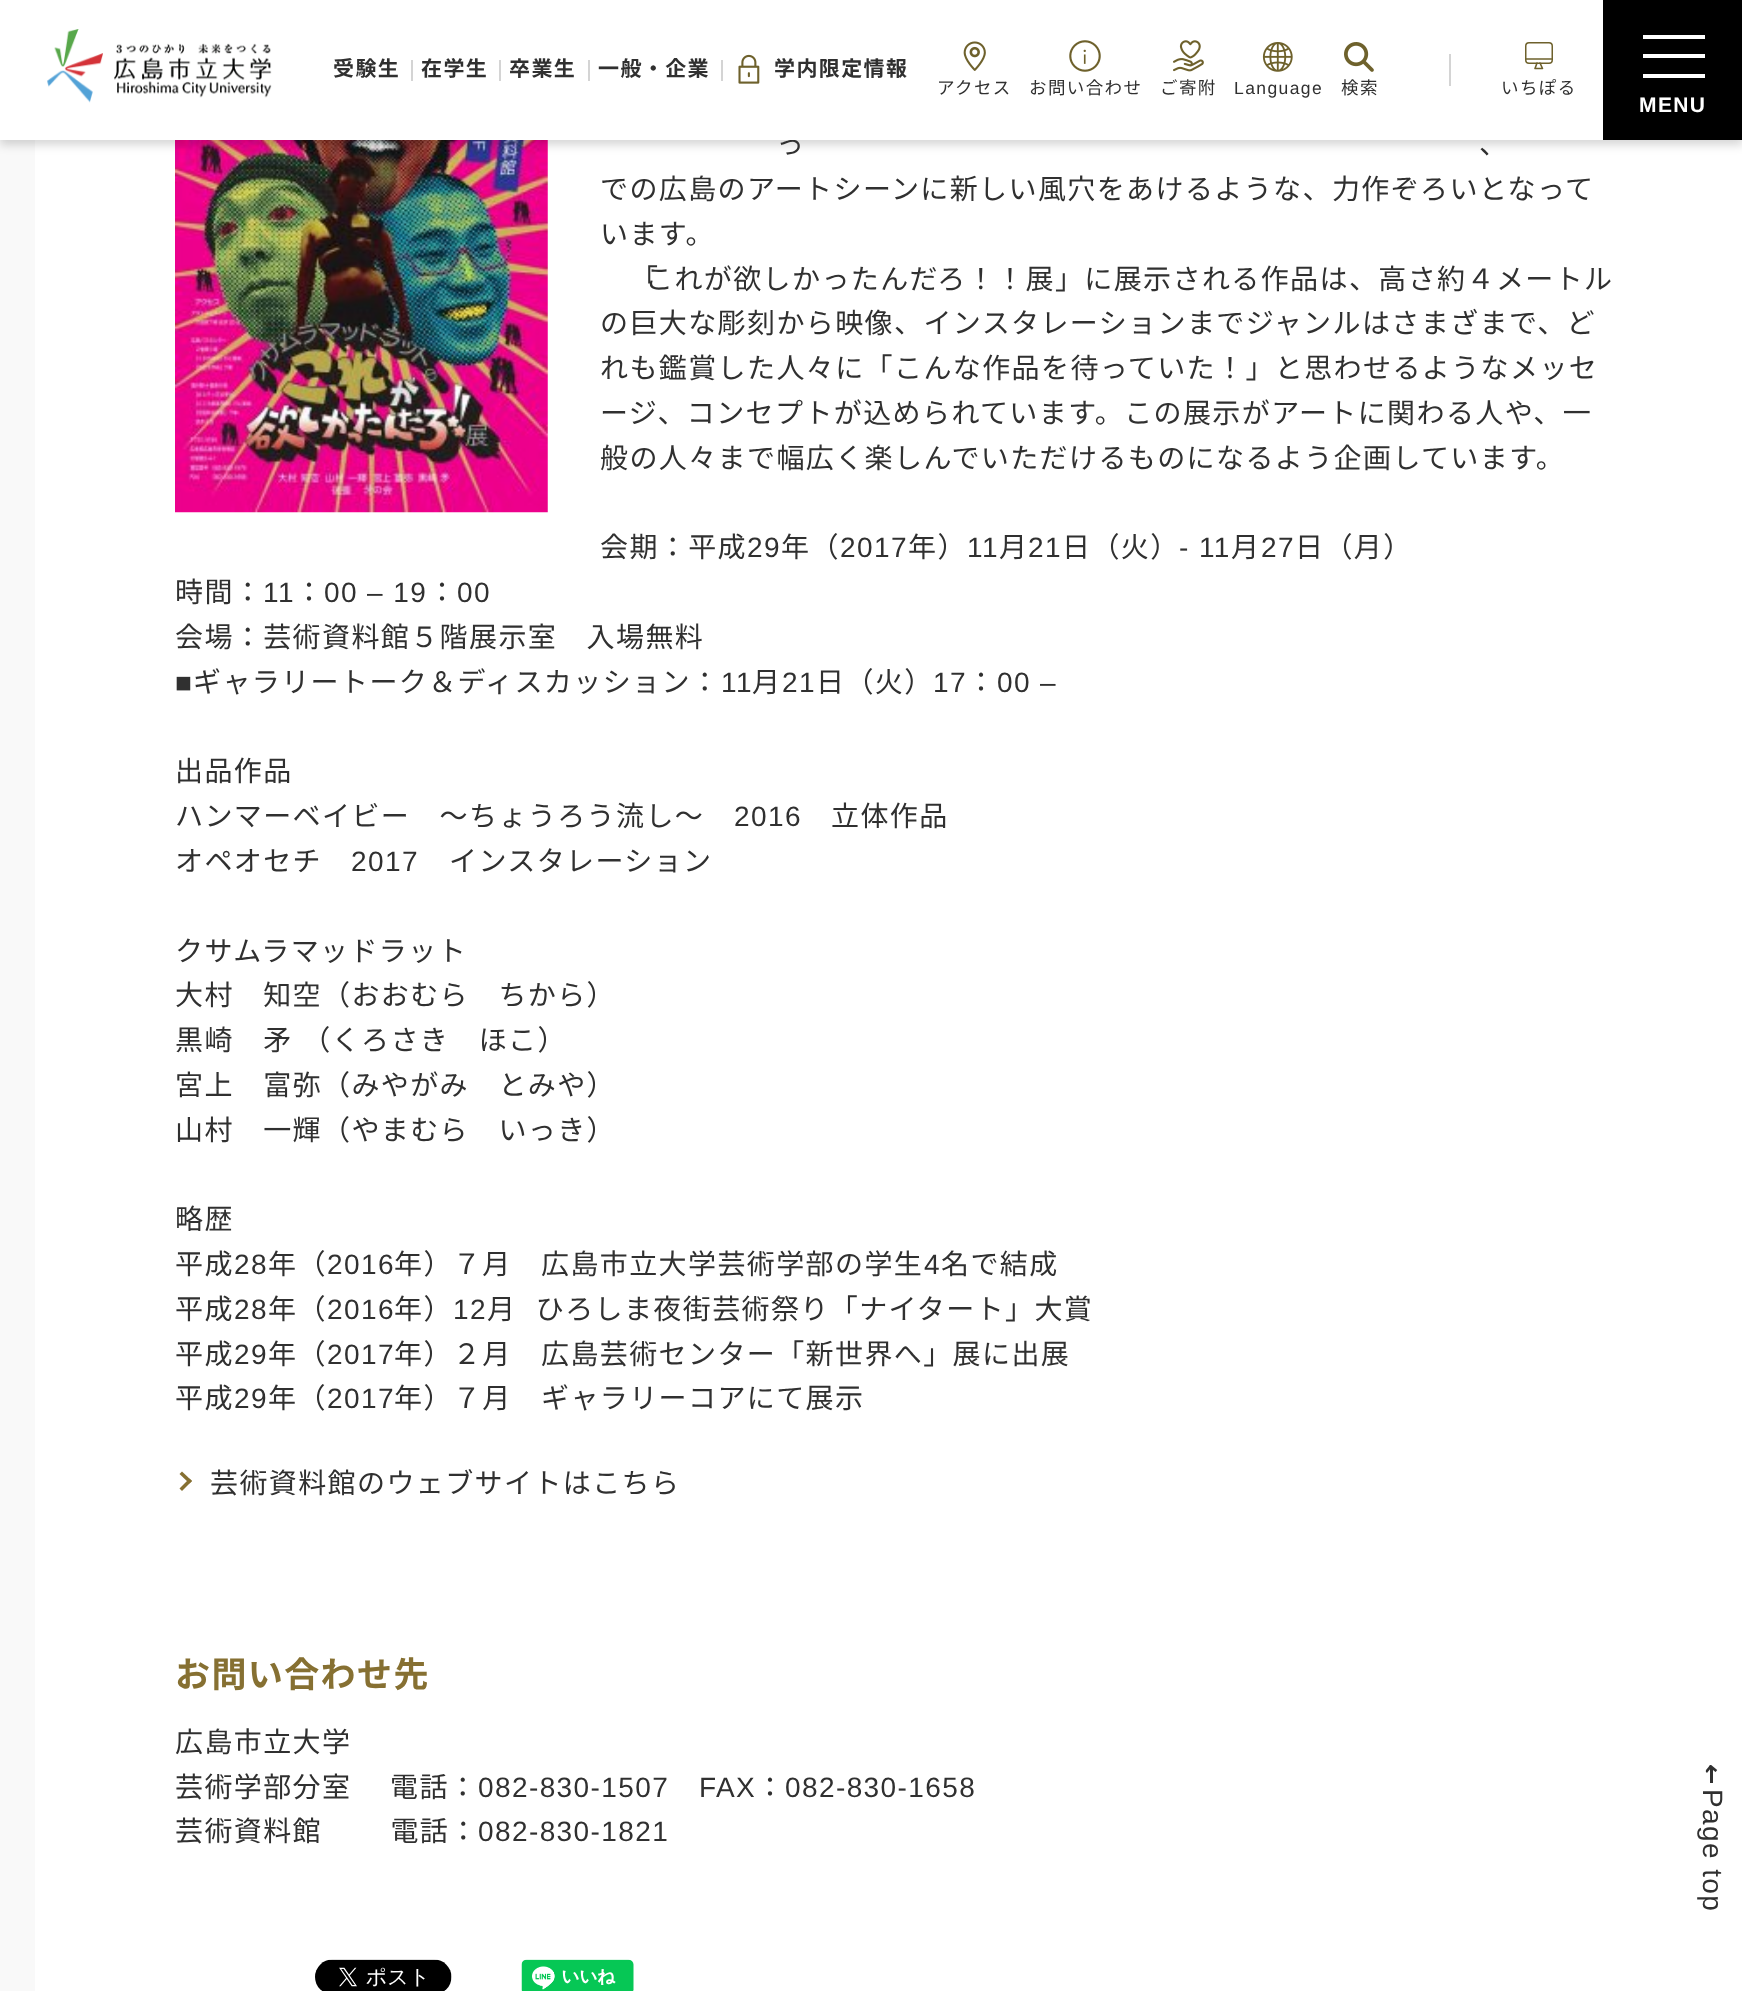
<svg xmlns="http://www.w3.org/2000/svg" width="1742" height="1991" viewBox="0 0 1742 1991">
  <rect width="100%" height="100%" fill="rgb(249,249,249)"/>
  <rect x="35" y="140" width="1707" height="1851" fill="rgb(255,255,255)"/>
  <image x="175" y="140" width="373" height="373" href="pic8.png"/>
  <rect x="0" y="5" width="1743" height="140" fill="rgba(0,0,0,0.16)" filter="blur(5px)"/>
  <text x="776" y="154" font-family="Noto Sans JP" font-size="28" letter-spacing="1.4" fill="rgb(48,48,48)">っ</text>
  <rect x="0" y="0" width="1603" height="140" fill="rgb(255,255,255)"/>
  <image x="47" y="29" width="225" height="74" href="pic1.png"/>
  <text x="333" y="76" font-family="Noto Sans JP" font-size="21" font-weight="bold" letter-spacing="1.4" fill="rgb(48,48,48)">受験生</text>
  <rect x="411" y="60" width="2" height="21" fill="rgb(212,212,212)"/>
  <text x="421" y="76" font-family="Noto Sans JP" font-size="21" font-weight="bold" letter-spacing="1.4" fill="rgb(48,48,48)">在学生</text>
  <rect x="499" y="60" width="2" height="21" fill="rgb(212,212,212)"/>
  <text x="509" y="76" font-family="Noto Sans JP" font-size="21" font-weight="bold" letter-spacing="1.4" fill="rgb(48,48,48)">卒業生</text>
  <rect x="588" y="60" width="2" height="21" fill="rgb(212,212,212)"/>
  <text x="598" y="76" font-family="Noto Sans JP" font-size="21" font-weight="bold" letter-spacing="1.4" fill="rgb(48,48,48)">一般・企業</text>
  <rect x="721" y="60" width="2" height="21" fill="rgb(212,212,212)"/>
  <image x="738" y="54" width="22" height="30" href="pic2.png"/>
  <text x="774" y="76" font-family="Noto Sans JP" font-size="21" font-weight="bold" letter-spacing="1.4" fill="rgb(48,48,48)">学内限定情報</text>
  <image x="963" y="41" width="23" height="30" href="pic3.png"/>
  <text x="937" y="94" font-family="Noto Sans JP" font-size="17.5" letter-spacing="1.4" fill="rgb(48,48,48)">アクセス</text>
  <image x="1069" y="40" width="32" height="32" href="pic4.png"/>
  <text x="1029" y="94" font-family="Noto Sans JP" font-size="17.5" letter-spacing="1.4" fill="rgb(48,48,48)">お問い合わせ</text>
  <image x="1173" y="40" width="31" height="32" href="pic5.png"/>
  <text x="1160" y="94" font-family="Noto Sans JP" font-size="17.5" letter-spacing="1.4" fill="rgb(48,48,48)">ご寄附</text>
  <image x="1262" y="42" width="31" height="30" href="pic6.png"/>
  <text x="1234" y="94" font-family="Liberation Sans" font-size="17.5" letter-spacing="1.4" fill="rgb(48,48,48)">Language</text>
  <image x="1344" y="42" width="30" height="30" href="pic7.png"/>
  <text x="1341" y="94" font-family="Noto Sans JP" font-size="17.5" letter-spacing="1.4" fill="rgb(48,48,48)">検索</text>
  <rect x="1449" y="54" width="2" height="32" fill="rgb(212,212,212)"/>
  <path d="M1537 63L1535 68.5H1542.5L1540 63" fill="none" stroke="rgb(110,97,44)" stroke-width="1.6" stroke-linecap="round" stroke-linejoin="round"/>
  <rect x="1525.75" y="42.75" width="26.5" height="20.5" rx="3.25" fill="none" stroke="rgb(110,97,44)" stroke-width="1.5"/>
  <path d="M1526 59H1551.5" fill="none" stroke="rgb(110,97,44)" stroke-width="1.6" stroke-linecap="round"/>
  <text x="1501" y="94" font-family="Noto Sans JP" font-size="17.5" letter-spacing="1.4" fill="rgb(48,48,48)">いちぽる</text>
  <rect x="1603" y="0" width="139" height="140" fill="rgb(0,0,0)"/>
  <rect x="1643" y="35" width="62" height="4" fill="rgb(255,255,255)"/>
  <rect x="1643" y="74" width="62" height="4" fill="rgb(255,255,255)"/>
  <rect x="1643" y="54" width="62" height="4" fill="rgb(255,255,255)"/>
  <text x="1639" y="112" font-family="Liberation Sans" font-size="21" font-weight="bold" letter-spacing="1.4" fill="rgb(255,255,255)">MENU</text>
  <g font-family="Noto Sans JP" font-size="28" letter-spacing="1.4" fill="rgb(48,48,48)">
    <text x="1479" y="154">、</text>
    <text>
      <tspan x="600" y="199">での広島のアートシーンに新しい風穴をあけるような、力作ぞろいとなって</tspan>
      <tspan x="600" y="244">います。</tspan>
    </text>
    <text x="630" y="289">「</text>
    <text x="645" y="289">これが欲しかったんだろ！！展」に展示される作品は、高さ約４メートル</text>
    <text>
      <tspan x="600" y="333">の巨大な彫刻から映像、インスタレーションまでジャンルはさまざまで、ど</tspan>
      <tspan x="600" y="378">れも鑑賞した人々に「こんな作品を待っていた！」と思わせるようなメッセ</tspan>
      <tspan x="600" y="423">ージ、コンセプトが込められています。この展示がアートに関わる人や、一</tspan>
      <tspan x="600" y="468">般の人々まで幅広く楽しんでいただけるものになるよう企画しています。</tspan>
    </text>
    <text x="600" y="557">会期：平成</text>
  </g>
  <text x="747" y="557" font-family="Liberation Sans" font-size="28" letter-spacing="1.4" fill="rgb(48,48,48)">29</text>
  <text x="781" y="557" font-family="Noto Sans JP" font-size="28" letter-spacing="1.4" fill="rgb(48,48,48)">年（</text>
  <text x="840" y="557" font-family="Liberation Sans" font-size="28" letter-spacing="1.4" fill="rgb(48,48,48)">2017</text>
  <text x="908" y="557" font-family="Noto Sans JP" font-size="28" letter-spacing="1.4" fill="rgb(48,48,48)">年）</text>
  <text x="967" y="557" font-family="Liberation Sans" font-size="28" letter-spacing="1.4" fill="rgb(48,48,48)">11</text>
  <text x="999" y="557" font-family="Noto Sans JP" font-size="28" letter-spacing="1.4" fill="rgb(48,48,48)">月</text>
  <text x="1028" y="557" font-family="Liberation Sans" font-size="28" letter-spacing="1.4" fill="rgb(48,48,48)">21</text>
  <text x="1062" y="557" font-family="Noto Sans JP" font-size="28" letter-spacing="1.4" fill="rgb(48,48,48)">日（火）</text>
  <text x="1179" y="557" font-family="Liberation Sans" font-size="28" letter-spacing="1.4" fill="rgb(48,48,48)">- 11</text>
  <text x="1231" y="557" font-family="Noto Sans JP" font-size="28" letter-spacing="1.4" fill="rgb(48,48,48)">月</text>
  <text x="1261" y="557" font-family="Liberation Sans" font-size="28" letter-spacing="1.4" fill="rgb(48,48,48)">27</text>
  <g font-family="Noto Sans JP" font-size="28" letter-spacing="1.4" fill="rgb(48,48,48)">
    <text x="1295" y="557">日（月）</text>
    <text x="175" y="602">時間：</text>
  </g>
  <text x="263" y="602" font-family="Liberation Sans" font-size="28" letter-spacing="1.4" fill="rgb(48,48,48)">11</text>
  <text x="295" y="602" font-family="Noto Sans JP" font-size="28" letter-spacing="1.4" fill="rgb(48,48,48)">：</text>
  <text x="324" y="602" font-family="Liberation Sans" font-size="28" letter-spacing="1.4" fill="rgb(48,48,48)">00 – 19</text>
  <text x="428" y="602" font-family="Noto Sans JP" font-size="28" letter-spacing="1.4" fill="rgb(48,48,48)">：</text>
  <text x="457" y="602" font-family="Liberation Sans" font-size="28" letter-spacing="1.4" fill="rgb(48,48,48)">00</text>
  <text x="175" y="647" font-family="Noto Sans JP" font-size="28" letter-spacing="1.4" fill="rgb(48,48,48)">会場：芸術資料館５階展示室　入場無料</text>
  <text x="175" y="692" font-family="Liberation Sans" font-size="28" letter-spacing="1.4" fill="rgb(48,48,48)">■</text>
  <text x="193" y="692" font-family="Noto Sans JP" font-size="28" letter-spacing="1.4" fill="rgb(48,48,48)">ギャラリートーク＆ディスカッション：</text>
  <text x="721" y="692" font-family="Liberation Sans" font-size="28" letter-spacing="1.4" fill="rgb(48,48,48)">11</text>
  <text x="752" y="692" font-family="Noto Sans JP" font-size="28" letter-spacing="1.4" fill="rgb(48,48,48)">月</text>
  <text x="782" y="692" font-family="Liberation Sans" font-size="28" letter-spacing="1.4" fill="rgb(48,48,48)">21</text>
  <text x="816" y="692" font-family="Noto Sans JP" font-size="28" letter-spacing="1.4" fill="rgb(48,48,48)">日（火）</text>
  <text x="933" y="692" font-family="Liberation Sans" font-size="28" letter-spacing="1.4" fill="rgb(48,48,48)">17</text>
  <text x="967" y="692" font-family="Noto Sans JP" font-size="28" letter-spacing="1.4" fill="rgb(48,48,48)">：</text>
  <text x="997" y="692" font-family="Liberation Sans" font-size="28" letter-spacing="1.4" fill="rgb(48,48,48)">00 –</text>
  <g font-family="Noto Sans JP" font-size="28" letter-spacing="1.4" fill="rgb(48,48,48)">
    <text>
      <tspan x="175" y="781">出品作品</tspan>
      <tspan x="175" y="826">ハンマーベイビー　～ちょうろう流し～</tspan>
    </text>
  </g>
  <text x="734" y="826" font-family="Liberation Sans" font-size="28" letter-spacing="1.4" fill="rgb(48,48,48)">2016</text>
  <g font-family="Noto Sans JP" font-size="28" letter-spacing="1.4" fill="rgb(48,48,48)">
    <text x="831" y="826">立体作品</text>
    <text x="175" y="871">オペオセチ</text>
  </g>
  <text x="351" y="871" font-family="Liberation Sans" font-size="28" letter-spacing="1.4" fill="rgb(48,48,48)">2017</text>
  <g font-family="Noto Sans JP" font-size="28" letter-spacing="1.4" fill="rgb(48,48,48)">
    <text x="449" y="871">インスタレーション</text>
    <text>
      <tspan x="175" y="961">クサムラマッドラット</tspan>
      <tspan x="175" y="1005">大村　知空（おおむら　ちから）</tspan>
      <tspan x="175" y="1050" word-spacing="2">黒崎　矛 （くろさき　ほこ）</tspan>
      <tspan x="175" y="1095">宮上　富弥（みやがみ　とみや）</tspan>
      <tspan x="175" y="1140">山村　一輝（やまむら　いっき）</tspan>
    </text>
    <text>
      <tspan x="175" y="1229">略歴</tspan>
      <tspan x="175" y="1274">平成</tspan>
    </text>
  </g>
  <text x="234" y="1274" font-family="Liberation Sans" font-size="28" letter-spacing="1.4" fill="rgb(48,48,48)">28</text>
  <text x="268" y="1274" font-family="Noto Sans JP" font-size="28" letter-spacing="1.4" fill="rgb(48,48,48)">年（</text>
  <text x="327" y="1274" font-family="Liberation Sans" font-size="28" letter-spacing="1.4" fill="rgb(48,48,48)">2016</text>
  <text x="394" y="1274" font-family="Noto Sans JP" font-size="28" letter-spacing="1.4" fill="rgb(48,48,48)">年）７月　広島市立大学芸術学部の学生</text>
  <text x="924" y="1274" font-family="Liberation Sans" font-size="28" letter-spacing="1.4" fill="rgb(48,48,48)">4</text>
  <g font-family="Noto Sans JP" font-size="28" letter-spacing="1.4" fill="rgb(48,48,48)">
    <text x="941" y="1274">名で結成</text>
    <text x="175" y="1319">平成</text>
  </g>
  <text x="234" y="1319" font-family="Liberation Sans" font-size="28" letter-spacing="1.4" fill="rgb(48,48,48)">28</text>
  <text x="268" y="1319" font-family="Noto Sans JP" font-size="28" letter-spacing="1.4" fill="rgb(48,48,48)">年（</text>
  <text x="327" y="1319" font-family="Liberation Sans" font-size="28" letter-spacing="1.4" fill="rgb(48,48,48)">2016</text>
  <text x="394" y="1319" font-family="Noto Sans JP" font-size="28" letter-spacing="1.4" fill="rgb(48,48,48)">年）</text>
  <text x="453" y="1319" font-family="Liberation Sans" font-size="28" letter-spacing="1.4" fill="rgb(48,48,48)">12</text>
  <g font-family="Noto Sans JP" font-size="28" letter-spacing="1.4" fill="rgb(48,48,48)">
    <text x="487" y="1319" word-spacing="2" xml:space="preserve">月  ひろしま夜街芸術祭り「ナイタート」大賞</text>
    <text x="175" y="1364">平成</text>
  </g>
  <text x="234" y="1364" font-family="Liberation Sans" font-size="28" letter-spacing="1.4" fill="rgb(48,48,48)">29</text>
  <text x="268" y="1364" font-family="Noto Sans JP" font-size="28" letter-spacing="1.4" fill="rgb(48,48,48)">年（</text>
  <text x="327" y="1364" font-family="Liberation Sans" font-size="28" letter-spacing="1.4" fill="rgb(48,48,48)">2017</text>
  <g font-family="Noto Sans JP" font-size="28" letter-spacing="1.4" fill="rgb(48,48,48)">
    <text x="394" y="1364">年）２月　広島芸術センター「新世界へ」展に出展</text>
    <text x="175" y="1408">平成</text>
  </g>
  <text x="234" y="1408" font-family="Liberation Sans" font-size="28" letter-spacing="1.4" fill="rgb(48,48,48)">29</text>
  <text x="268" y="1408" font-family="Noto Sans JP" font-size="28" letter-spacing="1.4" fill="rgb(48,48,48)">年（</text>
  <text x="327" y="1408" font-family="Liberation Sans" font-size="28" letter-spacing="1.4" fill="rgb(48,48,48)">2017</text>
  <text x="394" y="1408" font-family="Noto Sans JP" font-size="28" letter-spacing="1.4" fill="rgb(48,48,48)">年）７月　ギャラリーコアにて展示</text>
  <path d="M179.5 1474L182 1471.5L192 1481L189.5 1483.5Z" fill="rgb(134,112,50)"/>
  <path d="M179.5 1488.5L189.5 1478.5L192 1481L182 1491Z" fill="rgb(134,112,50)"/>
  <text x="210" y="1493" font-family="Noto Sans JP" font-size="28" letter-spacing="1.4" fill="rgb(48,48,48)">芸術資料館のウェブサイトはこちら</text>
  <text x="175" y="1687" font-family="Noto Sans JP" font-size="35" font-weight="bold" letter-spacing="1.4" fill="rgb(134,112,50)">お問い合わせ先</text>
  <g font-family="Noto Sans JP" font-size="28" letter-spacing="1.4" fill="rgb(48,48,48)">
    <text>
      <tspan x="175" y="1752">広島市立大学</tspan>
      <tspan x="175" y="1797">芸術学部分室</tspan>
    </text>
    <text x="390" y="1797">電話：</text>
  </g>
  <g font-family="Liberation Sans" font-size="28" letter-spacing="1.4" fill="rgb(48,48,48)">
    <text x="478" y="1797">082-830-1507</text>
    <text x="699" y="1797">FAX</text>
  </g>
  <text x="756" y="1797" font-family="Noto Sans JP" font-size="28" letter-spacing="1.4" fill="rgb(48,48,48)">：</text>
  <text x="785" y="1797" font-family="Liberation Sans" font-size="28" letter-spacing="1.4" fill="rgb(48,48,48)">082-830-1658</text>
  <text x="175" y="1841" word-spacing="2" font-family="Noto Sans JP" font-size="28" letter-spacing="1.4" fill="rgb(48,48,48)">芸術資料館　　 電話：</text>
  <text x="478" y="1841" font-family="Liberation Sans" font-size="28" letter-spacing="1.4" fill="rgb(48,48,48)">082-830-1821</text>
  <image x="315" y="1959" width="137" height="32" href="pic9.png"/>
  <image x="521" y="1959" width="113" height="32" href="pic10.png"/>
  <image x="1705" y="1765" width="13" height="18" href="pic11.png"/>
  <text x="1703" y="1789" transform="rotate(90 1703 1789)" font-family="Liberation Sans" font-size="28" letter-spacing="1.4" fill="rgb(48,48,48)">Page top</text>
</svg>
